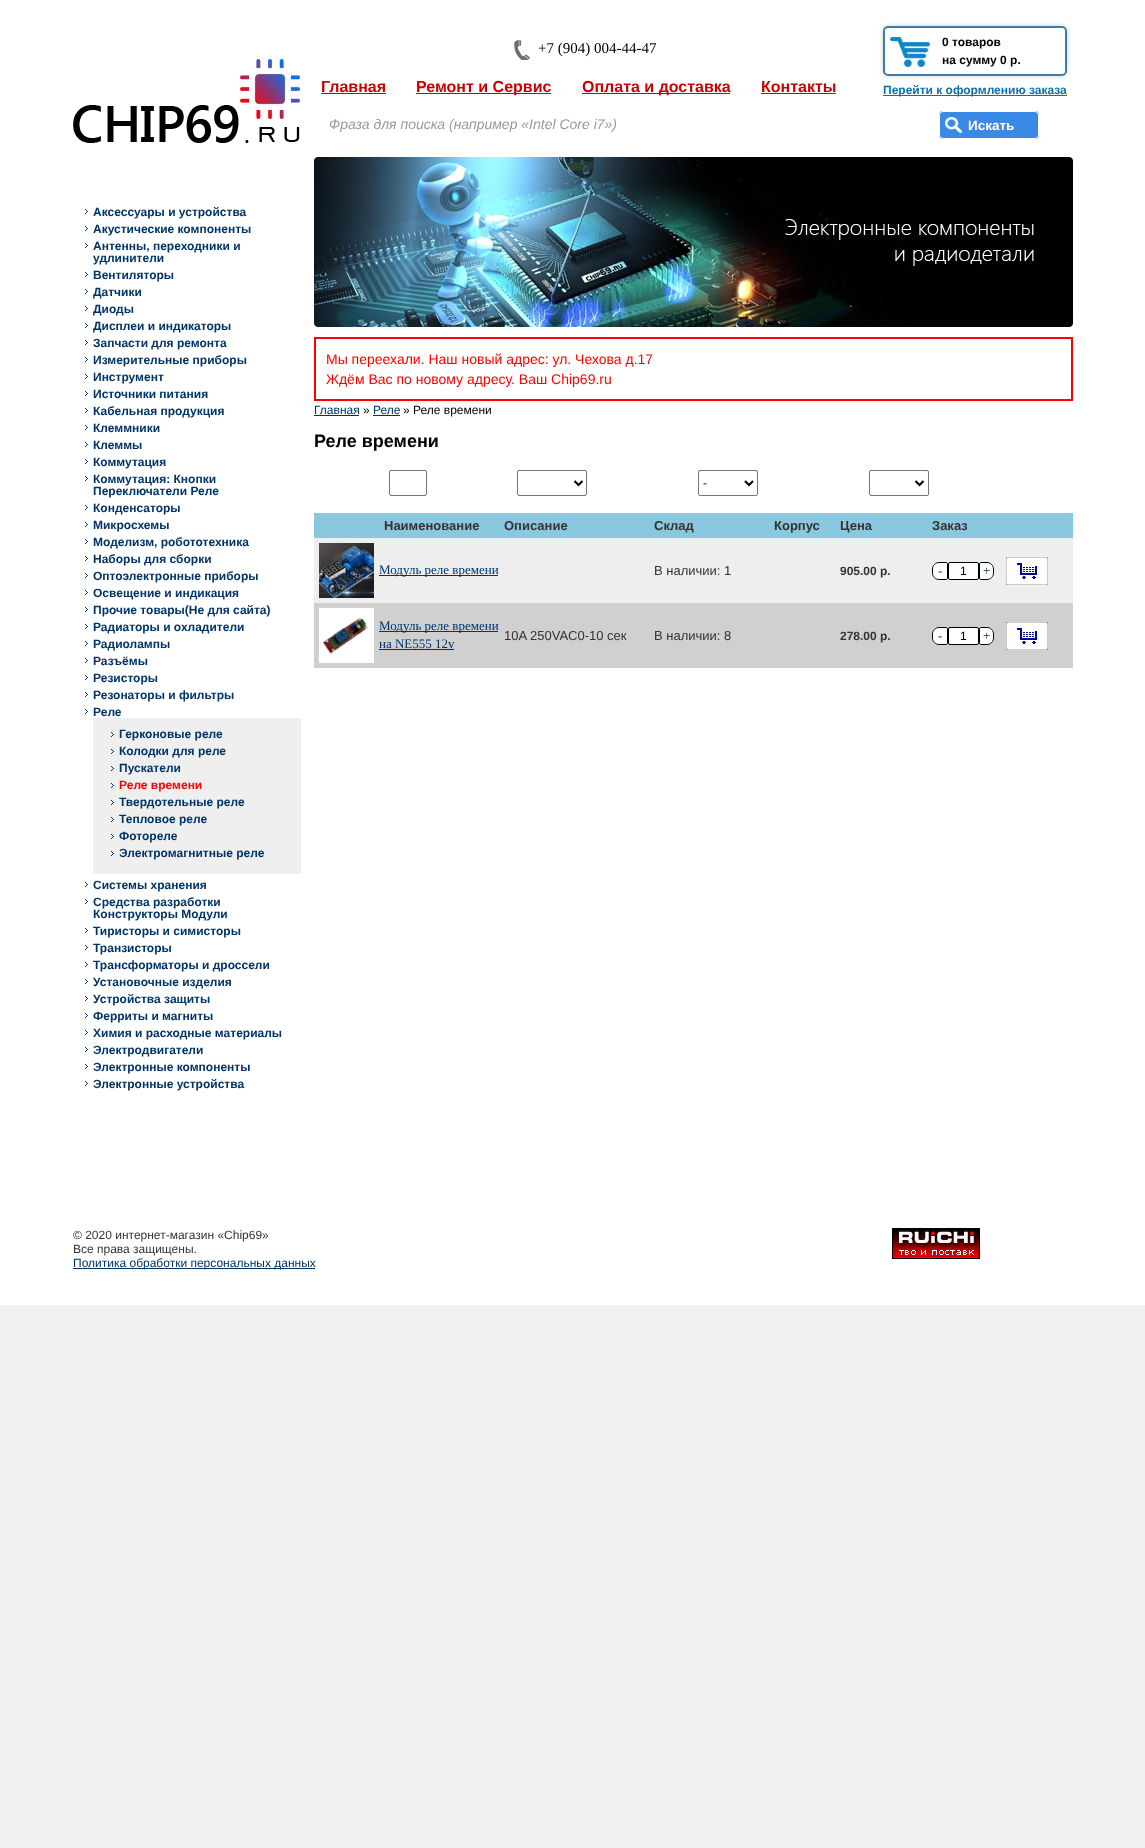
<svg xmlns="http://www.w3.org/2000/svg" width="1145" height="1848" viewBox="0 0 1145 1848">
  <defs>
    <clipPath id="clip1"><path d="M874 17H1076V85H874ZM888 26H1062C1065 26 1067 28 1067 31V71C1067 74 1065 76 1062 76H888C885 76 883 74 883 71V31C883 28 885 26 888 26Z" clip-rule="evenodd"/></clipPath>
  </defs>
  <rect width="100%" height="100%" fill="rgb(239,241,243)"/>
  <rect x="0" y="0" width="1145" height="1305" fill="rgb(255,255,255)"/>
  <image x="514" y="40" width="16" height="20" href="pic1.png"/>
  <text x="538" y="53" font-family="Liberation Serif" font-size="15" fill="rgb(0,0,0)">+7 (904) 004-44-47</text>
  <g clip-path="url(#clip1)">
    <rect x="883" y="26" width="184" height="50" rx="5" fill="rgb(204,204,204)" filter="blur(2.5px)"/>
  </g>
  <rect x="884" y="27" width="182" height="48" rx="4" fill="none" stroke="rgb(62,123,170)" stroke-width="2"/>
  <image x="890" y="37" width="40" height="30" href="pic2.png"/>
  <g font-family="Liberation Sans" font-size="12" font-weight="bold" fill="rgb(0,0,0)">
    <text>
      <tspan x="942" y="46">0 товаров</tspan>
      <tspan x="942" y="64">на сумму 0 р.</tspan>
    </text>
  </g>
  <rect x="883" y="95" width="184" height="1" fill="rgb(11,114,172)"/>
  <text x="883" y="94" font-family="Liberation Sans" font-size="12" font-weight="bold" fill="rgb(11,114,172)">Перейти к оформлению заказа</text>
  <image x="73" y="59" width="227" height="84" href="pic3.png"/>
  <text x="321" y="92" font-family="Liberation Sans" font-size="16" font-weight="bold" fill="rgb(204,0,0)">Главная</text>
  <rect x="321" y="93" width="65" height="1" fill="rgb(204,0,0)"/>
  <rect x="416" y="93" width="135" height="1" fill="rgb(204,0,0)"/>
  <text x="416" y="92" font-family="Liberation Sans" font-size="16" font-weight="bold" fill="rgb(204,0,0)">Ремонт и Сервис</text>
  <rect x="582" y="93" width="148" height="1" fill="rgb(204,0,0)"/>
  <g font-family="Liberation Sans" font-size="16" font-weight="bold" fill="rgb(204,0,0)">
    <text x="582" y="92">Оплата и доставка</text>
    <text x="761" y="92">Контакты</text>
  </g>
  <rect x="761" y="93" width="75" height="1" fill="rgb(204,0,0)"/>
  <text x="329" y="129" font-family="Liberation Sans" font-size="14" font-style="italic" fill="rgb(153,153,153)">Фраза для поиска (например «Intel Core i7»)</text>
  <rect x="939" y="111" width="100" height="28" rx="4" fill="rgb(58,137,230)"/>
  <image x="945" y="117" width="17" height="16" href="pic4.png"/>
  <rect x="939.5" y="111.5" width="99" height="27" rx="3.5" fill="none" stroke="rgb(255,255,255)"/>
  <text x="968" y="130" font-family="Liberation Sans" font-size="13.5" font-weight="bold" fill="rgb(255,255,255)">Искать</text>
  <image x="85" y="209" width="3" height="5" href="pic5.png"/>
  <text x="93" y="216" font-family="Liberation Sans" font-size="12" font-weight="bold" fill="rgb(0,51,102)">Аксессуары и устройства</text>
  <image x="85" y="226" width="3" height="5" href="pic5.png"/>
  <text x="93" y="233" font-family="Liberation Sans" font-size="12" font-weight="bold" fill="rgb(0,51,102)">Акустические компоненты</text>
  <image x="85" y="243" width="3" height="5" href="pic5.png"/>
  <g font-family="Liberation Sans" font-size="12" font-weight="bold" fill="rgb(0,51,102)">
    <text>
      <tspan x="93" y="250">Антенны, переходники и</tspan>
      <tspan x="93" y="262">удлинители</tspan>
    </text>
  </g>
  <image x="85" y="272" width="3" height="5" href="pic5.png"/>
  <text x="93" y="279" font-family="Liberation Sans" font-size="12" font-weight="bold" fill="rgb(0,51,102)">Вентиляторы</text>
  <image x="85" y="289" width="3" height="5" href="pic5.png"/>
  <text x="93" y="296" font-family="Liberation Sans" font-size="12" font-weight="bold" fill="rgb(0,51,102)">Датчики</text>
  <image x="85" y="306" width="3" height="5" href="pic5.png"/>
  <text x="93" y="313" font-family="Liberation Sans" font-size="12" font-weight="bold" fill="rgb(0,51,102)">Диоды</text>
  <image x="85" y="323" width="3" height="5" href="pic5.png"/>
  <text x="93" y="330" font-family="Liberation Sans" font-size="12" font-weight="bold" fill="rgb(0,51,102)">Дисплеи и индикаторы</text>
  <image x="85" y="340" width="3" height="5" href="pic5.png"/>
  <text x="93" y="347" font-family="Liberation Sans" font-size="12" font-weight="bold" fill="rgb(0,51,102)">Запчасти для ремонта</text>
  <image x="85" y="357" width="3" height="5" href="pic5.png"/>
  <text x="93" y="364" font-family="Liberation Sans" font-size="12" font-weight="bold" fill="rgb(0,51,102)">Измерительные приборы</text>
  <image x="85" y="374" width="3" height="5" href="pic5.png"/>
  <text x="93" y="381" font-family="Liberation Sans" font-size="12" font-weight="bold" fill="rgb(0,51,102)">Инструмент</text>
  <image x="85" y="391" width="3" height="5" href="pic5.png"/>
  <text x="93" y="398" font-family="Liberation Sans" font-size="12" font-weight="bold" fill="rgb(0,51,102)">Источники питания</text>
  <image x="85" y="408" width="3" height="5" href="pic5.png"/>
  <text x="93" y="415" font-family="Liberation Sans" font-size="12" font-weight="bold" fill="rgb(0,51,102)">Кабельная продукция</text>
  <image x="85" y="425" width="3" height="5" href="pic5.png"/>
  <text x="93" y="432" font-family="Liberation Sans" font-size="12" font-weight="bold" fill="rgb(0,51,102)">Клеммники</text>
  <image x="85" y="442" width="3" height="5" href="pic5.png"/>
  <text x="93" y="449" font-family="Liberation Sans" font-size="12" font-weight="bold" fill="rgb(0,51,102)">Клеммы</text>
  <image x="85" y="459" width="3" height="5" href="pic5.png"/>
  <text x="93" y="466" font-family="Liberation Sans" font-size="12" font-weight="bold" fill="rgb(0,51,102)">Коммутация</text>
  <image x="85" y="476" width="3" height="5" href="pic5.png"/>
  <g font-family="Liberation Sans" font-size="12" font-weight="bold" fill="rgb(0,51,102)">
    <text>
      <tspan x="93" y="483">Коммутация: Кнопки</tspan>
      <tspan x="93" y="495">Переключатели Реле</tspan>
    </text>
  </g>
  <image x="85" y="505" width="3" height="5" href="pic5.png"/>
  <text x="93" y="512" font-family="Liberation Sans" font-size="12" font-weight="bold" fill="rgb(0,51,102)">Конденсаторы</text>
  <image x="85" y="522" width="3" height="5" href="pic5.png"/>
  <text x="93" y="529" font-family="Liberation Sans" font-size="12" font-weight="bold" fill="rgb(0,51,102)">Микросхемы</text>
  <image x="85" y="539" width="3" height="5" href="pic5.png"/>
  <text x="93" y="546" font-family="Liberation Sans" font-size="12" font-weight="bold" fill="rgb(0,51,102)">Моделизм, робототехника</text>
  <image x="85" y="556" width="3" height="5" href="pic5.png"/>
  <text x="93" y="563" font-family="Liberation Sans" font-size="12" font-weight="bold" fill="rgb(0,51,102)">Наборы для сборки</text>
  <image x="85" y="573" width="3" height="5" href="pic5.png"/>
  <text x="93" y="580" font-family="Liberation Sans" font-size="12" font-weight="bold" fill="rgb(0,51,102)">Оптоэлектронные приборы</text>
  <image x="85" y="590" width="3" height="5" href="pic5.png"/>
  <text x="93" y="597" font-family="Liberation Sans" font-size="12" font-weight="bold" fill="rgb(0,51,102)">Освещение и индикация</text>
  <image x="85" y="607" width="3" height="5" href="pic5.png"/>
  <text x="93" y="614" font-family="Liberation Sans" font-size="12" font-weight="bold" fill="rgb(0,51,102)">Прочие товары(Не для сайта)</text>
  <image x="85" y="624" width="3" height="5" href="pic5.png"/>
  <text x="93" y="631" font-family="Liberation Sans" font-size="12" font-weight="bold" fill="rgb(0,51,102)">Радиаторы и охладители</text>
  <image x="85" y="641" width="3" height="5" href="pic5.png"/>
  <text x="93" y="648" font-family="Liberation Sans" font-size="12" font-weight="bold" fill="rgb(0,51,102)">Радиолампы</text>
  <image x="85" y="658" width="3" height="5" href="pic5.png"/>
  <text x="93" y="665" font-family="Liberation Sans" font-size="12" font-weight="bold" fill="rgb(0,51,102)">Разъёмы</text>
  <image x="85" y="675" width="3" height="5" href="pic5.png"/>
  <text x="93" y="682" font-family="Liberation Sans" font-size="12" font-weight="bold" fill="rgb(0,51,102)">Резисторы</text>
  <image x="85" y="692" width="3" height="5" href="pic5.png"/>
  <text x="93" y="699" font-family="Liberation Sans" font-size="12" font-weight="bold" fill="rgb(0,51,102)">Резонаторы и фильтры</text>
  <image x="85" y="709" width="3" height="5" href="pic5.png"/>
  <text x="93" y="716" font-family="Liberation Sans" font-size="12" font-weight="bold" fill="rgb(0,51,102)">Реле</text>
  <rect x="93" y="718" width="208" height="156" fill="rgb(239,239,239)"/>
  <image x="111" y="732" width="3" height="5" href="pic6.png"/>
  <text x="119" y="738" font-family="Liberation Sans" font-size="12" font-weight="bold" fill="rgb(0,51,102)">Герконовые реле</text>
  <image x="111" y="749" width="3" height="5" href="pic6.png"/>
  <text x="119" y="755" font-family="Liberation Sans" font-size="12" font-weight="bold" fill="rgb(0,51,102)">Колодки для реле</text>
  <image x="111" y="766" width="3" height="5" href="pic6.png"/>
  <text x="119" y="772" font-family="Liberation Sans" font-size="12" font-weight="bold" fill="rgb(0,51,102)">Пускатели</text>
  <image x="111" y="783" width="3" height="5" href="pic6.png"/>
  <text x="119" y="789" font-family="Liberation Sans" font-size="12" font-weight="bold" fill="rgb(255,0,0)">Реле времени</text>
  <image x="111" y="800" width="3" height="5" href="pic6.png"/>
  <text x="119" y="806" font-family="Liberation Sans" font-size="12" font-weight="bold" fill="rgb(0,51,102)">Твердотельные реле</text>
  <image x="111" y="817" width="3" height="5" href="pic6.png"/>
  <text x="119" y="823" font-family="Liberation Sans" font-size="12" font-weight="bold" fill="rgb(0,51,102)">Тепловое реле</text>
  <image x="111" y="834" width="3" height="5" href="pic6.png"/>
  <text x="119" y="840" font-family="Liberation Sans" font-size="12" font-weight="bold" fill="rgb(0,51,102)">Фотореле</text>
  <image x="111" y="851" width="3" height="5" href="pic6.png"/>
  <text x="119" y="857" font-family="Liberation Sans" font-size="12" font-weight="bold" fill="rgb(0,51,102)">Электромагнитные реле</text>
  <image x="85" y="882" width="3" height="5" href="pic5.png"/>
  <text x="93" y="889" font-family="Liberation Sans" font-size="12" font-weight="bold" fill="rgb(0,51,102)">Системы хранения</text>
  <image x="85" y="899" width="3" height="5" href="pic5.png"/>
  <g font-family="Liberation Sans" font-size="12" font-weight="bold" fill="rgb(0,51,102)">
    <text>
      <tspan x="93" y="906">Средства разработки</tspan>
      <tspan x="93" y="918">Конструкторы Модули</tspan>
    </text>
  </g>
  <image x="85" y="928" width="3" height="5" href="pic5.png"/>
  <text x="93" y="935" font-family="Liberation Sans" font-size="12" font-weight="bold" fill="rgb(0,51,102)">Тиристоры и симисторы</text>
  <image x="85" y="945" width="3" height="5" href="pic5.png"/>
  <text x="93" y="952" font-family="Liberation Sans" font-size="12" font-weight="bold" fill="rgb(0,51,102)">Транзисторы</text>
  <image x="85" y="962" width="3" height="5" href="pic5.png"/>
  <text x="93" y="969" font-family="Liberation Sans" font-size="12" font-weight="bold" fill="rgb(0,51,102)">Трансформаторы и дроссели</text>
  <image x="85" y="979" width="3" height="5" href="pic5.png"/>
  <text x="93" y="986" font-family="Liberation Sans" font-size="12" font-weight="bold" fill="rgb(0,51,102)">Установочные изделия</text>
  <image x="85" y="996" width="3" height="5" href="pic5.png"/>
  <text x="93" y="1003" font-family="Liberation Sans" font-size="12" font-weight="bold" fill="rgb(0,51,102)">Устройства защиты</text>
  <image x="85" y="1013" width="3" height="5" href="pic5.png"/>
  <text x="93" y="1020" font-family="Liberation Sans" font-size="12" font-weight="bold" fill="rgb(0,51,102)">Ферриты и магниты</text>
  <image x="85" y="1030" width="3" height="5" href="pic5.png"/>
  <text x="93" y="1037" font-family="Liberation Sans" font-size="12" font-weight="bold" fill="rgb(0,51,102)">Химия и расходные материалы</text>
  <image x="85" y="1047" width="3" height="5" href="pic5.png"/>
  <text x="93" y="1054" font-family="Liberation Sans" font-size="12" font-weight="bold" fill="rgb(0,51,102)">Электродвигатели</text>
  <image x="85" y="1064" width="3" height="5" href="pic5.png"/>
  <text x="93" y="1071" font-family="Liberation Sans" font-size="12" font-weight="bold" fill="rgb(0,51,102)">Электронные компоненты</text>
  <image x="85" y="1081" width="3" height="5" href="pic5.png"/>
  <text x="93" y="1088" font-family="Liberation Sans" font-size="12" font-weight="bold" fill="rgb(0,51,102)">Электронные устройства</text>
  <image x="314" y="157" width="759" height="170" href="pic7.png"/>
  <rect x="315" y="338" width="757" height="62" fill="none" stroke="rgb(255,0,0)" stroke-width="2"/>
  <g font-family="Liberation Sans" font-size="14" fill="rgb(255,0,0)">
    <text>
      <tspan x="326" y="364">Мы переехали. Наш новый адрес: ул. Чехова д.17</tspan>
      <tspan x="326" y="384">Ждём Вас по новому адресу. Ваш Chip69.ru</tspan>
    </text>
  </g>
  <text x="314" y="414" font-family="Liberation Sans" font-size="12" fill="rgb(0,51,102)">Главная</text>
  <rect x="314" y="415" width="45" height="1" fill="rgb(0,51,102)"/>
  <text x="363" y="414" font-family="Liberation Sans" font-size="12" fill="rgb(0,0,0)">»</text>
  <text x="373" y="414" font-family="Liberation Sans" font-size="12" fill="rgb(0,51,102)">Реле</text>
  <rect x="373" y="415" width="27" height="1" fill="rgb(0,51,102)"/>
  <text x="403" y="414" font-family="Liberation Sans" font-size="12" fill="rgb(0,0,0)">» Реле времени</text>
  <text x="314" y="447" font-family="Liberation Sans" font-size="18" font-weight="bold" fill="rgb(0,0,0)">Реле времени</text>
  <rect x="389.5" y="470.5" width="37" height="25" rx="1.5" fill="none" stroke="rgb(118,118,118)"/>
  <rect x="517.5" y="470.5" width="69" height="25" rx="1.5" fill="none" stroke="rgb(118,118,118)"/>
  <path d="M574.5 481L578.5 485L582.5 481" fill="none" stroke="rgb(0,0,0)" stroke-width="2"/>
  <rect x="698.5" y="470.5" width="59" height="25" rx="1.5" fill="none" stroke="rgb(118,118,118)"/>
  <path d="M745 481L749 485L753 481" fill="none" stroke="rgb(0,0,0)" stroke-width="2"/>
  <text x="703" y="487" font-family="Liberation Sans" font-size="12" fill="rgb(0,0,0)">-</text>
  <rect x="869.5" y="470.5" width="59" height="25" rx="1.5" fill="none" stroke="rgb(118,118,118)"/>
  <path d="M915.5 481L919.5 485L923.5 481" fill="none" stroke="rgb(0,0,0)" stroke-width="2"/>
  <rect x="314" y="513" width="759" height="25" fill="rgb(137,200,223)"/>
  <g font-family="Liberation Sans" font-size="13" font-weight="bold" fill="rgb(51,51,51)">
    <text x="384" y="530">Наименование</text>
    <text x="504" y="530">Описание</text>
    <text x="654" y="530">Склад</text>
    <text x="774" y="530">Корпус</text>
    <text x="840" y="530">Цена</text>
    <text x="932" y="530">Заказ</text>
  </g>
  <rect x="314" y="538" width="759" height="65" fill="rgb(238,238,238)"/>
  <image x="319" y="543" width="55" height="55" href="pic8.png"/>
  <rect x="379" y="575" width="119" height="1" fill="rgb(0,51,102)"/>
  <text x="379" y="574" font-family="Liberation Serif" font-size="13" fill="rgb(0,51,102)">Модуль реле времени</text>
  <text x="654" y="575" font-family="Liberation Sans" font-size="13" fill="rgb(51,51,51)">В наличии: 1</text>
  <text x="840" y="575" font-family="Liberation Sans" font-size="12" font-weight="bold" fill="rgb(51,51,51)">905.00 р.</text>
  <path d="M939 562.5H946C947 562.5 947.5 563 947.5 564V578C947.5 579 947 579.5 946 579.5H939C935.5 579.5 932.5 576.5 932.5 573V569C932.5 565.5 935.5 562.5 939 562.5Z" fill="rgb(255,255,255)" stroke="rgb(0,0,0)"/>
  <text x="938" y="575" font-family="Liberation Serif" font-size="13" fill="rgb(0,51,102)">-</text>
  <rect x="948.5" y="562.5" width="30" height="17" rx="1.5" fill="rgb(255,255,255)" stroke="rgb(0,0,0)"/>
  <text x="960" y="575" font-family="Liberation Sans" font-size="12" fill="rgb(0,0,0)">1</text>
  <path d="M981 562.5H987C990.5 562.5 993.5 565.5 993.5 569V573C993.5 576.5 990.5 579.5 987 579.5H981C980 579.5 979.5 579 979.5 578V564C979.5 563 980 562.5 981 562.5Z" fill="rgb(255,255,255)" stroke="rgb(0,0,0)"/>
  <text x="983" y="575" font-family="Liberation Serif" font-size="13" fill="rgb(0,51,102)">+</text>
  <rect x="1006" y="557" width="42" height="28" rx="2" fill="rgb(0,0,0)" filter="blur(0.5px)"/>
  <rect x="1006.5" y="557.5" width="41" height="27" rx="1.5" fill="rgb(255,255,255)" stroke="rgb(204,204,204)"/>
  <image x="1017" y="563" width="20" height="16" href="pic9.png"/>
  <rect x="314" y="603" width="759" height="65" fill="rgb(208,208,208)"/>
  <image x="319" y="608" width="55" height="55" href="pic10.png"/>
  <rect x="379" y="631" width="119" height="1" fill="rgb(0,51,102)"/>
  <g font-family="Liberation Serif" font-size="13" fill="rgb(0,51,102)">
    <text>
      <tspan x="379" y="630">Модуль реле времени</tspan>
      <tspan x="379" y="648">на NE555 12v</tspan>
    </text>
  </g>
  <rect x="379" y="649" width="75" height="1" fill="rgb(0,51,102)"/>
  <g font-family="Liberation Sans" font-size="13" fill="rgb(51,51,51)">
    <text x="504" y="640">10A 250VAC0-10 сек</text>
    <text x="654" y="640">В наличии: 8</text>
  </g>
  <text x="840" y="640" font-family="Liberation Sans" font-size="12" font-weight="bold" fill="rgb(51,51,51)">278.00 р.</text>
  <path d="M939 627.5H946C947 627.5 947.5 628 947.5 629V643C947.5 644 947 644.5 946 644.5H939C935.5 644.5 932.5 641.5 932.5 638V634C932.5 630.5 935.5 627.5 939 627.5Z" fill="rgb(255,255,255)" stroke="rgb(0,0,0)"/>
  <text x="938" y="640" font-family="Liberation Serif" font-size="13" fill="rgb(0,51,102)">-</text>
  <rect x="948.5" y="627.5" width="30" height="17" rx="1.5" fill="rgb(255,255,255)" stroke="rgb(0,0,0)"/>
  <text x="960" y="640" font-family="Liberation Sans" font-size="12" fill="rgb(0,0,0)">1</text>
  <path d="M981 627.5H987C990.5 627.5 993.5 630.5 993.5 634V638C993.5 641.5 990.5 644.5 987 644.5H981C980 644.5 979.5 644 979.5 643V629C979.5 628 980 627.5 981 627.5Z" fill="rgb(255,255,255)" stroke="rgb(0,0,0)"/>
  <text x="983" y="640" font-family="Liberation Serif" font-size="13" fill="rgb(0,51,102)">+</text>
  <rect x="1006" y="622" width="42" height="28" rx="2" fill="rgb(0,0,0)" filter="blur(0.5px)"/>
  <rect x="1006.5" y="622.5" width="41" height="27" rx="1.5" fill="rgb(255,255,255)" stroke="rgb(204,204,204)"/>
  <image x="1017" y="628" width="20" height="16" href="pic9.png"/>
  <g font-family="Liberation Sans" font-size="12" fill="rgb(51,51,51)">
    <text>
      <tspan x="73" y="1239">© 2020 интернет-магазин «Chip69»</tspan>
      <tspan x="73" y="1253">Все права защищены.</tspan>
    </text>
  </g>
  <rect x="73" y="1268" width="242" height="1" fill="rgb(0,51,102)"/>
  <text x="73" y="1267" font-family="Liberation Sans" font-size="12" fill="rgb(0,51,102)">Политика обработки персональных данных</text>
  <image x="892" y="1228" width="88" height="31" href="pic11.png"/>
</svg>
